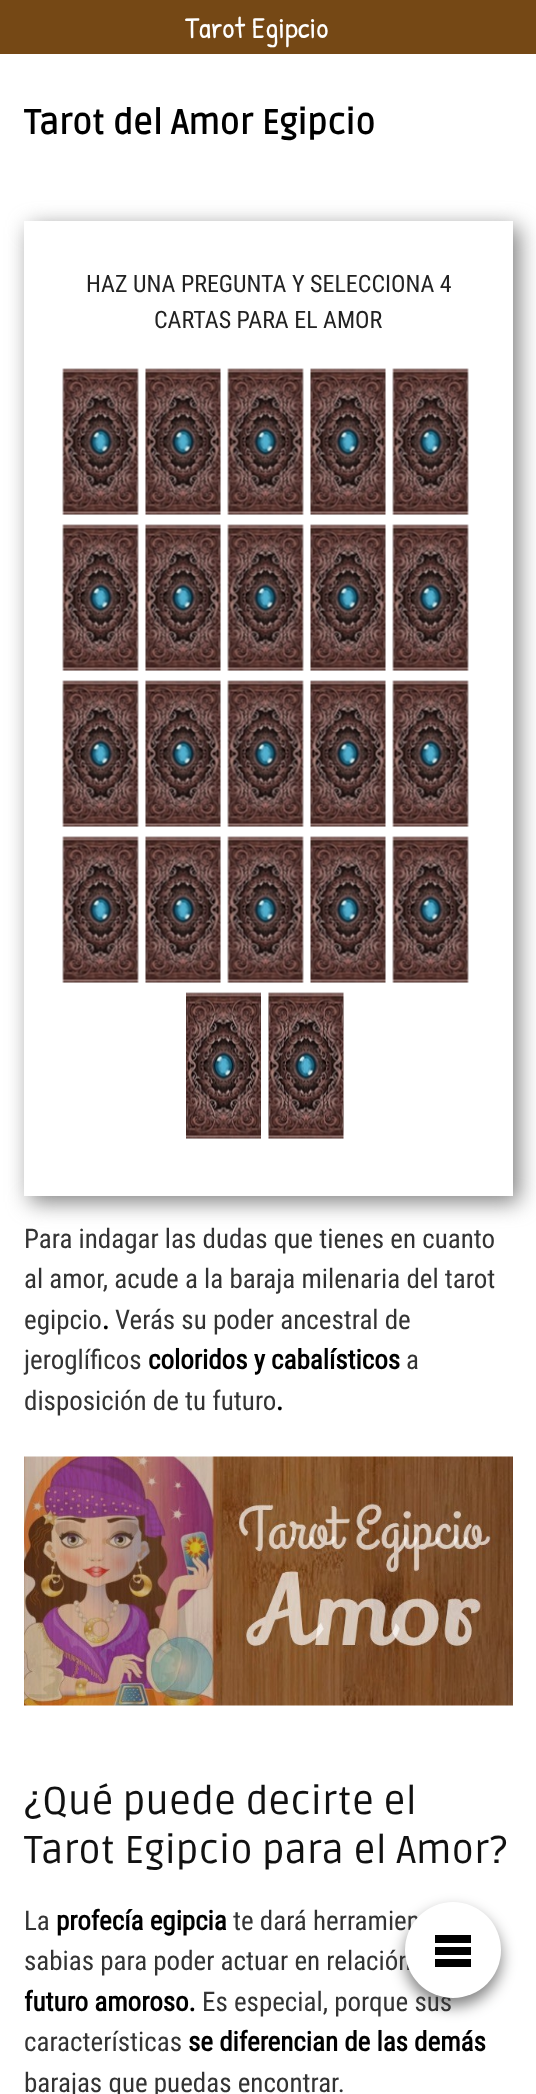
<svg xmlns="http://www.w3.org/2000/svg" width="536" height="2094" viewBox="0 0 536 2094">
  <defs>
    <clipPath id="clip1"><path d="M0 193H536V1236H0ZM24 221H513V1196H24Z" clip-rule="evenodd"/></clipPath>
  </defs>
  <rect width="100%" height="100%" fill="rgb(255,255,255)"/>
  <rect x="0" y="0" width="536" height="54" fill="rgb(117,72,21)"/>
  <text x="185" y="38" font-family="Patrick Hand" font-size="30" fill="rgb(255,255,255)">Tarot Egipcio</text>
  <rect x="405" y="1910" width="96" height="96" rx="48" fill="rgba(0,0,0,0.5)" filter="blur(7.5px)"/>
  <g font-family="Roboto Condensed" font-size="27" fill="rgb(51,51,51)">
    <text x="233" y="1930">te dará herramien</text>
    <text x="24" y="1970">sabias para poder actuar en relación</text>
    <text x="202" y="2011">Es especial, porque sus</text>
  </g>
  <circle cx="453" cy="1950" r="48" fill="rgb(255,255,255)"/>
  <rect x="435" y="1947" width="36" height="8" fill="rgb(0,0,0)"/>
  <rect x="435" y="1935" width="36" height="8" fill="rgb(0,0,0)"/>
  <rect x="435" y="1959" width="36" height="8" fill="rgb(0,0,0)"/>
  <text x="24" y="134" font-family="Ruda" font-size="34.5" font-weight="bold" fill="rgb(0,0,0)">Tarot del Amor Egipcio</text>
  <g clip-path="url(#clip1)">
    <rect x="30" y="227" width="489" height="975" fill="rgb(128,128,128)" filter="blur(11px)"/>
  </g>
  <g font-family="Roboto Condensed" font-size="24" fill="rgb(34,34,34)">
    <text x="86" y="292">HAZ UNA PREGUNTA Y SELECCIONA 4</text>
    <text x="154" y="328">CARTAS PARA EL AMOR</text>
  </g>
  <image x="62" y="368" width="77" height="147" href="pic1.png"/>
  <image x="145" y="368" width="76" height="147" href="pic2.png"/>
  <image x="227" y="368" width="77" height="147" href="pic1.png"/>
  <image x="310" y="368" width="76" height="147" href="pic2.png"/>
  <image x="392" y="368" width="77" height="147" href="pic3.png"/>
  <image x="62" y="524" width="77" height="147" href="pic1.png"/>
  <image x="145" y="524" width="76" height="147" href="pic2.png"/>
  <image x="227" y="524" width="77" height="147" href="pic1.png"/>
  <image x="310" y="524" width="76" height="147" href="pic2.png"/>
  <image x="392" y="524" width="77" height="147" href="pic1.png"/>
  <image x="62" y="680" width="77" height="147" href="pic1.png"/>
  <image x="145" y="680" width="76" height="147" href="pic2.png"/>
  <image x="227" y="680" width="77" height="147" href="pic1.png"/>
  <image x="310" y="680" width="76" height="147" href="pic2.png"/>
  <image x="392" y="680" width="77" height="147" href="pic3.png"/>
  <image x="62" y="836" width="77" height="147" href="pic1.png"/>
  <image x="145" y="836" width="76" height="147" href="pic2.png"/>
  <image x="227" y="836" width="77" height="147" href="pic1.png"/>
  <image x="310" y="836" width="76" height="147" href="pic2.png"/>
  <image x="392" y="836" width="77" height="147" href="pic1.png"/>
  <image x="186" y="992" width="75" height="147" href="pic4.png"/>
  <image x="268" y="992" width="76" height="147" href="pic5.png"/>
  <g font-family="Roboto Condensed" font-size="27" fill="rgb(51,51,51)">
    <text>
      <tspan x="24" y="1248">Para indagar las dudas que tienes en cuanto</tspan>
      <tspan x="24" y="1288">al amor, acude a la baraja milenaria del tarot</tspan>
      <tspan x="24" y="1329">egipcio</tspan>
    </text>
  </g>
  <text x="102" y="1329" font-family="Roboto Condensed" font-size="27" font-weight="bold" fill="rgb(0,0,0)">.</text>
  <g font-family="Roboto Condensed" font-size="27" fill="rgb(51,51,51)">
    <text x="115" y="1329">Verás su poder ancestral de</text>
    <text x="24" y="1369">jeroglíficos</text>
  </g>
  <text x="148" y="1369" font-family="Roboto Condensed" font-size="27" font-weight="bold" fill="rgb(0,0,0)">coloridos y cabalísticos</text>
  <g font-family="Roboto Condensed" font-size="27" fill="rgb(51,51,51)">
    <text x="406" y="1369">a</text>
    <text x="24" y="1410">disposición de tu futuro</text>
  </g>
  <text x="276" y="1410" font-family="Roboto Condensed" font-size="27" font-weight="bold" fill="rgb(0,0,0)">.</text>
  <image x="24" y="1456" width="489" height="250" href="pic6.png"/>
  <g font-family="Ruda" font-size="39" fill="rgb(17,17,17)">
    <text>
      <tspan x="24" y="1814">¿Qué puede decirte el</tspan>
      <tspan x="24" y="1863">Tarot Egipcio para el Amor?</tspan>
    </text>
  </g>
  <text x="24" y="1930" font-family="Roboto Condensed" font-size="27" fill="rgb(51,51,51)">La</text>
  <g font-family="Roboto Condensed" font-size="27" font-weight="bold" fill="rgb(0,0,0)">
    <text x="56" y="1930">profecía egipcia</text>
    <text x="24" y="2011">futuro amoroso.</text>
  </g>
  <text x="24" y="2051" font-family="Roboto Condensed" font-size="27" fill="rgb(51,51,51)">características</text>
  <text x="188" y="2051" font-family="Roboto Condensed" font-size="27" font-weight="bold" fill="rgb(0,0,0)">se diferencian de las demás</text>
  <text x="24" y="2092" font-family="Roboto Condensed" font-size="27" fill="rgb(51,51,51)">barajas que puedas encontrar.</text>
</svg>
